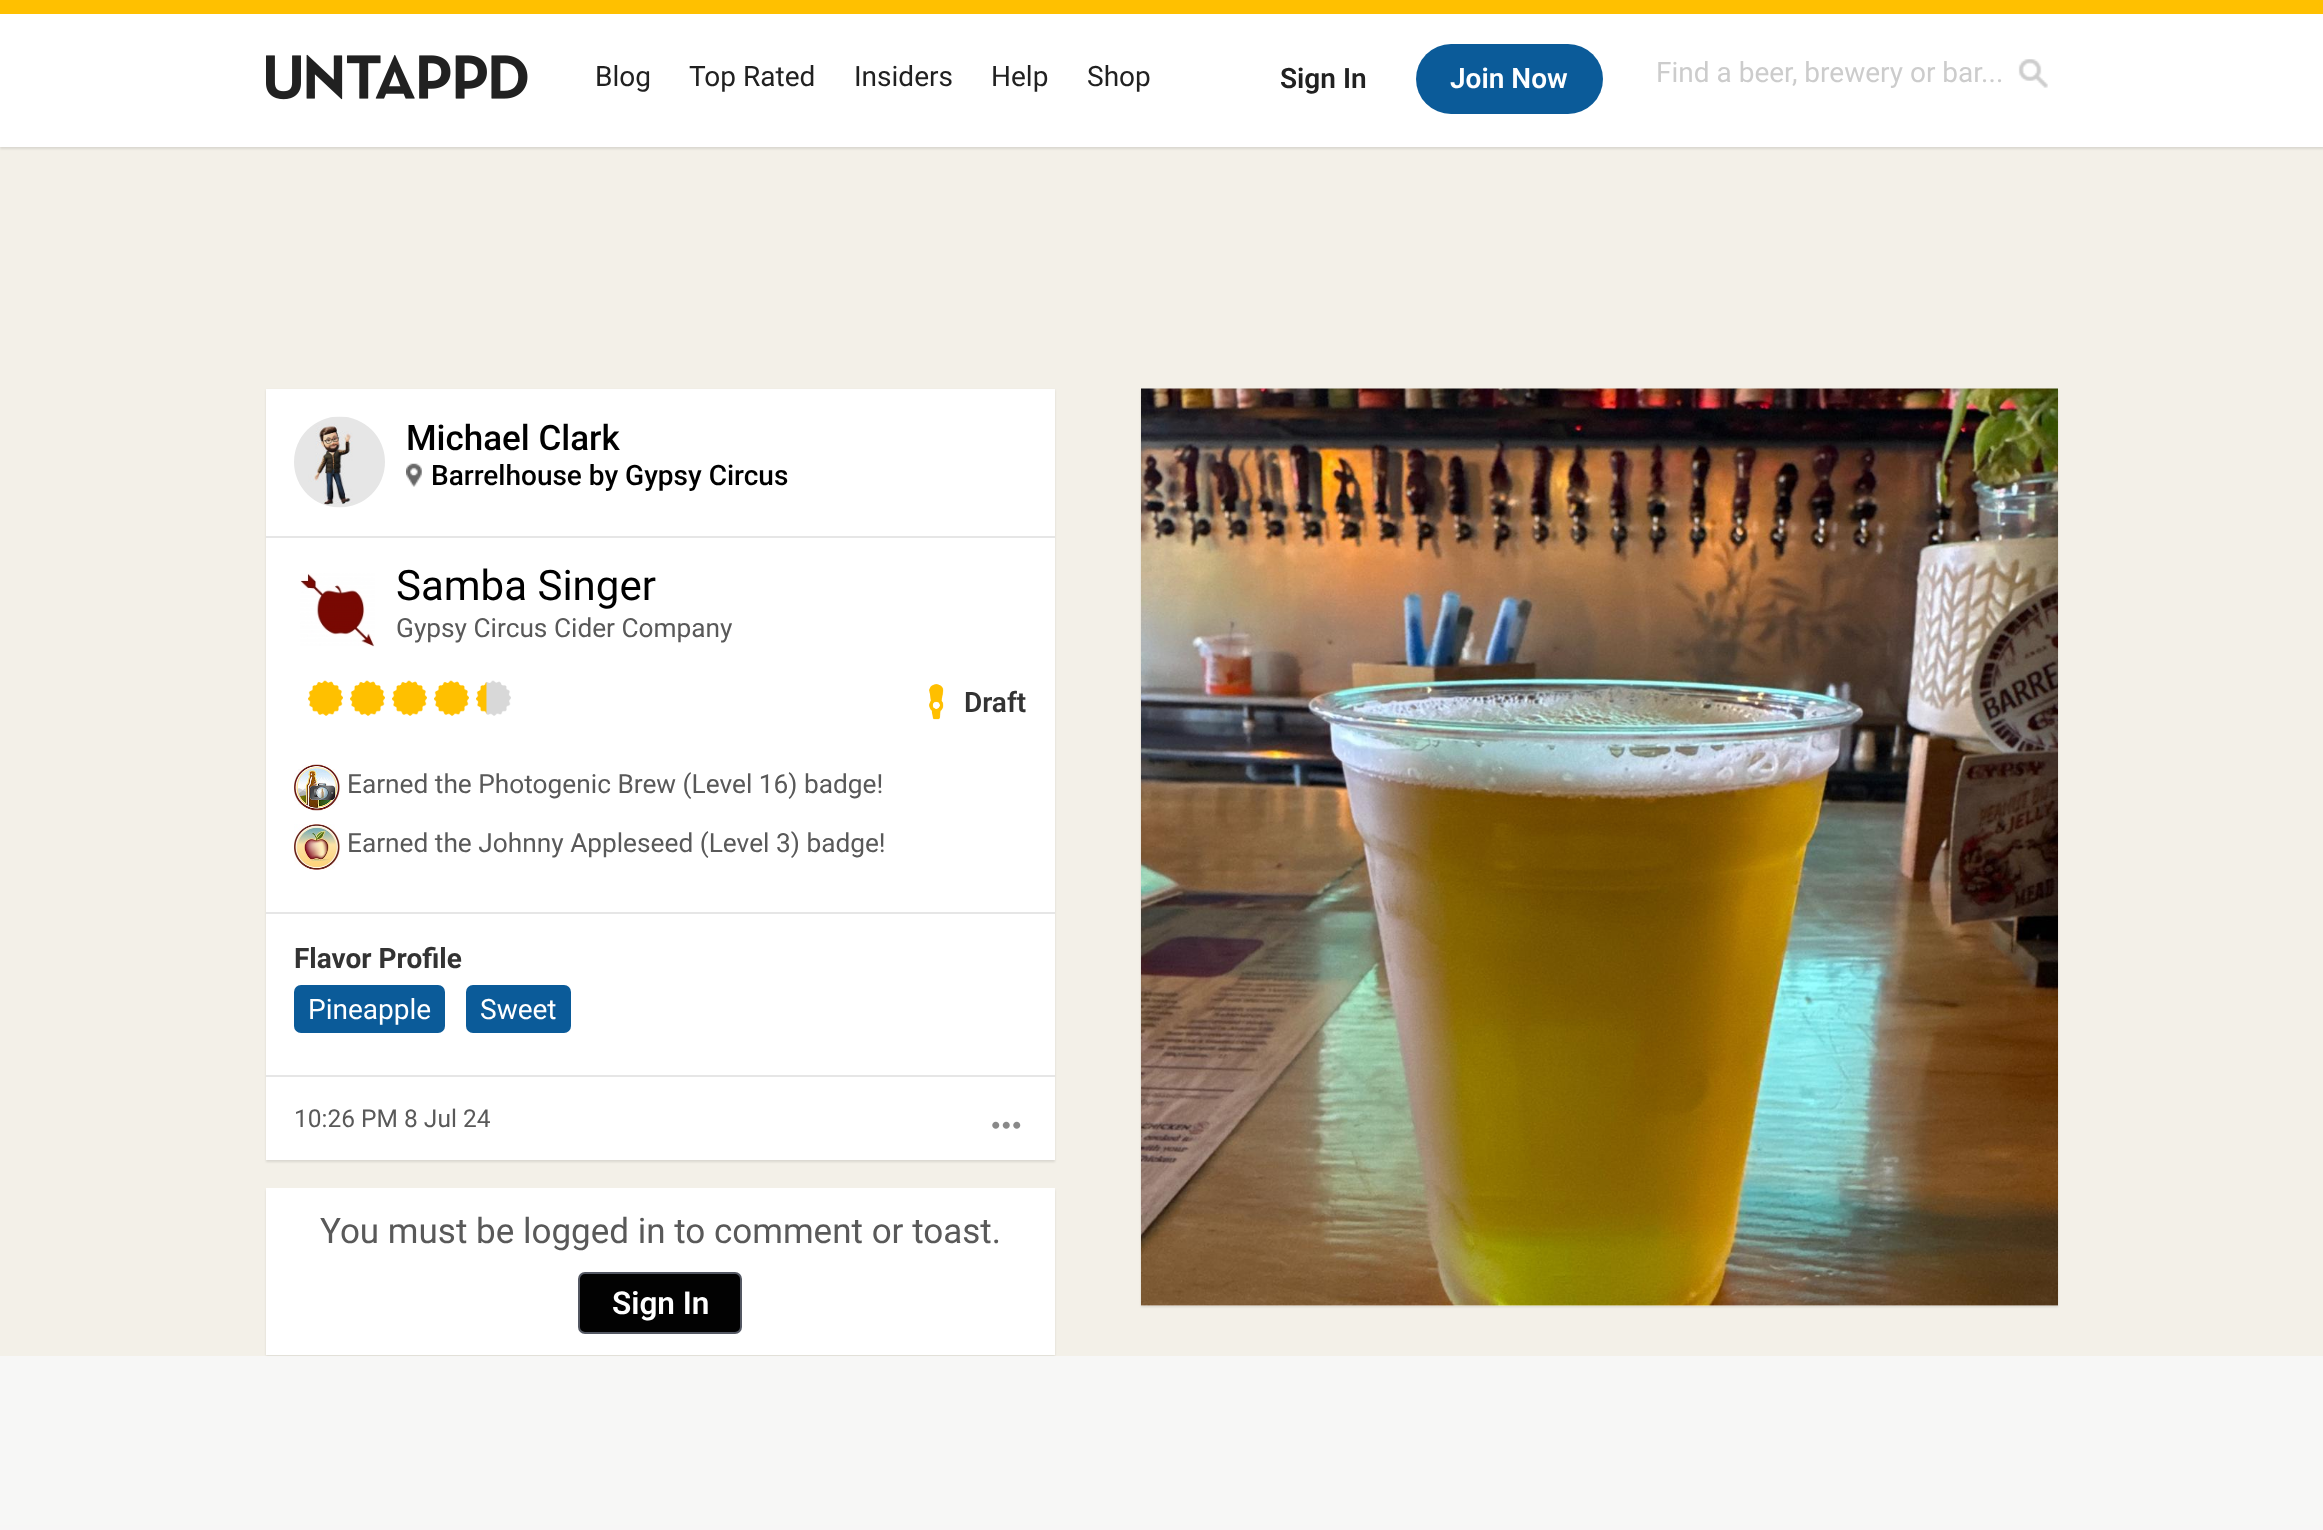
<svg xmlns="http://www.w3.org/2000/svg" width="2323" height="1530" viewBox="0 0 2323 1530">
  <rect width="100%" height="100%" fill="rgb(243,240,232)"/>
  <rect x="0" y="2" width="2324" height="147" fill="rgba(0,0,0,0.1)" filter="blur(1px)"/>
  <rect x="0" y="14" width="2323" height="133" fill="rgb(255,255,255)"/>
  <rect x="0" y="0" width="2323" height="14" fill="rgb(255,192,0)"/>
  <image x="266" y="54" width="262" height="46" href="pic1.png"/>
  <g font-family="Roboto" font-size="28" fill="rgb(33,33,33)">
    <text x="595" y="86">Blog</text>
    <text x="689" y="86">Top Rated</text>
    <text x="854" y="86">Insiders</text>
    <text x="991" y="86">Help</text>
    <text x="1087" y="86">Shop</text>
  </g>
  <image x="2018" y="59" width="30" height="29" href="pic3.png"/>
  <image x="2019" y="59" width="29" height="29" href="pic2.png"/>
  <text x="1656" y="82" font-family="Roboto" font-size="28" fill="rgb(204,204,204)">Find a beer, brewery or bar...</text>
  <text x="1280" y="88" font-family="Roboto" font-size="28" font-weight="600" fill="rgb(33,33,33)">Sign In</text>
  <rect x="1416" y="44" width="187" height="70" rx="35" fill="rgb(11,91,153)"/>
  <text x="1450" y="88" font-family="Roboto" font-size="28" font-weight="600" fill="rgb(255,255,255)">Join Now</text>
  <rect x="266" y="390" width="789" height="772" fill="rgba(0,0,0,0.1)" filter="blur(1px)"/>
  <rect x="266" y="389" width="789" height="771" fill="rgb(255,255,255)"/>
  <rect x="266" y="536" width="789" height="2" fill="rgb(230,230,230)"/>
  <image x="294" y="416" width="91" height="92" href="pic4.png"/>
  <text x="406" y="450" font-family="Roboto" font-size="35" font-weight="500" fill="rgb(0,0,0)">Michael Clark</text>
  <image x="406" y="463" width="16" height="24" href="pic5.png"/>
  <text x="431" y="485" font-family="Roboto" font-size="28" font-weight="500" fill="rgb(0,0,0)">Barrelhouse by Gypsy Circus</text>
  <rect x="1141" y="390" width="917" height="917" fill="rgba(0,0,0,0.1)" filter="blur(1px)"/>
  <rect x="1141" y="1305" width="917" height="1" fill="rgb(255,255,255)"/>
  <image x="1141" y="388" width="917" height="918" href="pic6.png"/>
  <rect x="266" y="912" width="789" height="2" fill="rgb(230,230,230)"/>
  <image x="300" y="573" width="75" height="74" href="pic7.png"/>
  <text x="396" y="600" font-family="Roboto" font-size="42" fill="rgb(0,0,0)">Samba Singer</text>
  <text x="396" y="637" font-family="Roboto" font-size="26.25" fill="rgb(89,89,89)">Gypsy Circus Cider Company</text>
  <image x="308" y="680" width="35" height="36" href="pic8.png"/>
  <image x="350" y="680" width="35" height="36" href="pic8.png"/>
  <image x="392" y="680" width="35" height="36" href="pic8.png"/>
  <image x="434" y="680" width="35" height="36" href="pic8.png"/>
  <image x="476" y="680" width="35" height="36" href="pic9.png"/>
  <image x="929" y="684" width="15" height="36" href="pic10.png"/>
  <text x="964" y="712" font-family="Roboto" font-size="28" font-weight="600" fill="rgb(51,51,51)">Draft</text>
  <image x="294" y="764" width="46" height="47" href="pic11.png"/>
  <text x="347" y="793" font-family="Roboto" font-size="26.25" fill="rgb(89,89,89)">Earned the Photogenic Brew (Level 16) badge!</text>
  <image x="294" y="824" width="46" height="46" href="pic12.png"/>
  <text x="347" y="852" font-family="Roboto" font-size="26.25" fill="rgb(89,89,89)">Earned the Johnny Appleseed (Level 3) badge!</text>
  <rect x="266" y="1075" width="789" height="2" fill="rgb(230,230,230)"/>
  <text x="294" y="968" font-family="Roboto" font-size="28" font-weight="bold" fill="rgb(51,51,51)">Flavor Profile</text>
  <rect x="294" y="985" width="151" height="48" rx="7" fill="rgb(11,91,153)"/>
  <text x="308" y="1019" font-family="Roboto" font-size="28" fill="rgb(255,255,255)">Pineapple</text>
  <rect x="466" y="985" width="105" height="48" rx="7" fill="rgb(11,91,153)"/>
  <text x="480" y="1019" font-family="Roboto" font-size="28" fill="rgb(255,255,255)">Sweet</text>
  <text x="294" y="1127" font-family="Roboto" font-size="24.5" fill="rgb(89,89,89)">10:26 PM 8 Jul 24</text>
  <image x="992" y="1121" width="29" height="8" href="pic13.png"/>
  <rect x="266" y="1190" width="789" height="166" fill="rgba(0,0,0,0.1)" filter="blur(1px)"/>
  <rect x="266" y="1188" width="789" height="167" fill="rgb(255,255,255)"/>
  <text x="320" y="1243" font-family="Roboto" font-size="35" fill="rgb(89,89,89)">You must be logged in to comment or toast.</text>
  <rect x="579" y="1273" width="162" height="60" rx="6" fill="rgb(2,2,2)" stroke="rgb(84,88,99)" stroke-width="2"/>
  <text x="612" y="1314" font-family="Roboto" font-size="31.5" font-weight="600" fill="rgb(255,255,255)">Sign In</text>
  <rect x="0" y="1356" width="2323" height="174" fill="rgba(247,247,247,0.9)"/>
</svg>
